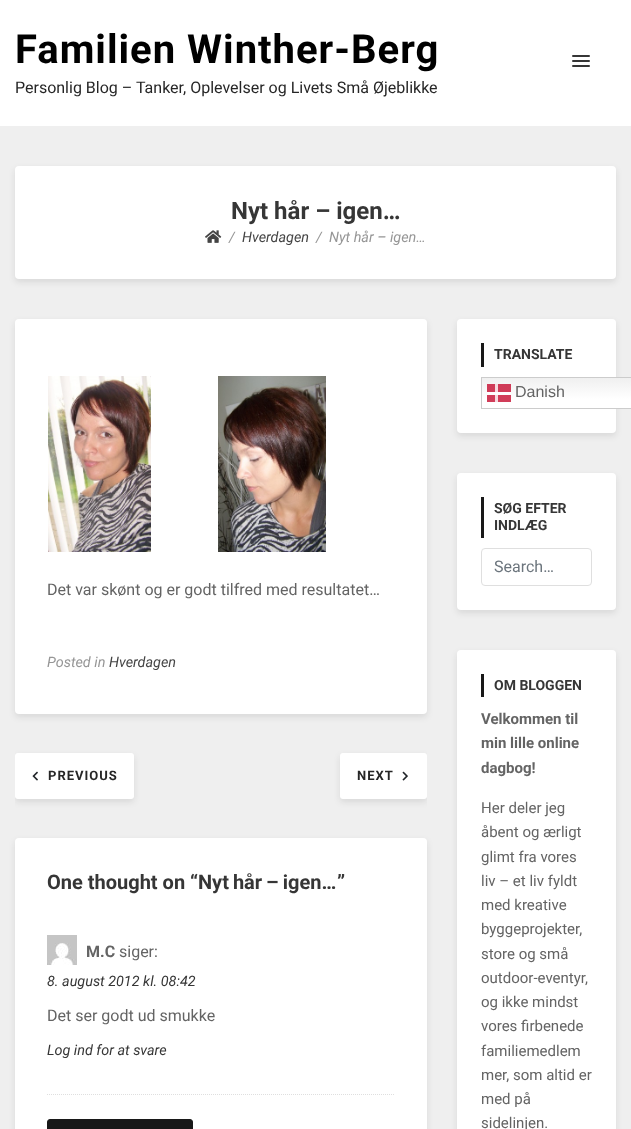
<svg xmlns="http://www.w3.org/2000/svg" width="631" height="1129" viewBox="0 0 631 1129">
  <defs>
    <clipPath id="clip1"><rect x="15" y="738" width="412" height="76"/></clipPath>
    <linearGradient id="g1" gradientUnits="userSpaceOnUse" x1="568" y1="377" x2="568" y2="409"><stop offset="0" stop-color="rgb(239,239,239)"/><stop offset="0.7" stop-color="rgb(255,255,255)"/></linearGradient>
    <linearGradient id="g2" gradientUnits="userSpaceOnUse" x1="568" y1="377" x2="568" y2="409"><stop offset="0" stop-color="rgb(206,57,86)"/><stop offset="0.7" stop-color="rgb(209,61,89)"/></linearGradient>
  </defs>
  <rect width="100%" height="100%" fill="rgb(239,239,239)"/>
  <rect x="0" y="0" width="631" height="126" fill="rgb(255,255,255)"/>
  <text x="15" y="63" font-family="Roboto" font-size="40" font-weight="bold" letter-spacing="1" fill="rgb(0,0,0)">Familien Winther-Berg</text>
  <text x="15" y="93" font-family="Roboto" font-size="16" fill="rgb(38,38,38)">Personlig Blog – Tanker, Oplevelser og Livets Små Øjeblikke</text>
  <rect x="572" y="55" width="18" height="2" rx="1" fill="rgb(54,54,54)"/>
  <rect x="572" y="60" width="18" height="2" rx="1" fill="rgb(54,54,54)"/>
  <rect x="572" y="65" width="18" height="2" rx="1" fill="rgb(54,54,54)"/>
  <rect x="15" y="169" width="601" height="113" rx="4" fill="rgba(20,20,20,0.1)" filter="blur(3px)"/>
  <rect x="15" y="166" width="601" height="113" rx="4" fill="rgb(255,255,255)"/>
  <text x="231" y="219" font-family="Roboto" font-size="24" font-weight="bold" fill="rgb(54,54,54)">Nyt hår – igen…</text>
  <image x="205" y="230" width="17" height="13" href="pic1.png"/>
  <text x="229" y="242" font-family="Roboto" font-size="14.4" font-style="italic" fill="rgb(150,150,150)">/</text>
  <text x="242" y="242" font-family="Roboto" font-size="14.4" font-style="italic" fill="rgb(68,68,68)">Hverdagen</text>
  <g font-family="Roboto" font-size="14.4" font-style="italic" fill="rgb(150,150,150)">
    <text x="316" y="242">/</text>
    <text x="329" y="242">Nyt hår – igen…</text>
  </g>
  <rect x="15" y="322" width="412" height="395" rx="4" fill="rgba(20,20,20,0.1)" filter="blur(3px)"/>
  <rect x="15" y="319" width="412" height="395" rx="4" fill="rgb(255,255,255)"/>
  <image x="48" y="376" width="103" height="176" href="pic2.png"/>
  <image x="218" y="376" width="108" height="176" href="pic3.png"/>
  <text x="47" y="595" font-family="Roboto" font-size="16" fill="rgb(100,100,100)">Det var skønt og er godt tilfred med resultatet…</text>
  <text x="47" y="667" font-family="Roboto" font-size="14.4" font-style="italic" fill="rgb(150,150,150)">Posted in</text>
  <text x="109" y="667" font-family="Roboto" font-size="14.4" font-style="italic" fill="rgb(68,68,68)">Hverdagen</text>
  <g clip-path="url(#clip1)">
    <rect x="15" y="756" width="119" height="46" rx="3" fill="rgba(20,20,20,0.1)" filter="blur(3px)"/>
  </g>
  <rect x="15" y="753" width="119" height="46" rx="3" fill="rgb(255,255,255)"/>
  <image x="32" y="771" width="6" height="10" href="pic4.png"/>
  <text x="48" y="780" font-family="Roboto" font-size="13" font-weight="bold" letter-spacing="1" fill="rgb(38,38,38)">PREVIOUS</text>
  <g clip-path="url(#clip1)">
    <rect x="340" y="756" width="87" height="46" rx="3" fill="rgba(20,20,20,0.1)" filter="blur(3px)"/>
  </g>
  <rect x="340" y="753" width="87" height="46" rx="3" fill="rgb(255,255,255)"/>
  <text x="357" y="780" font-family="Roboto" font-size="13" font-weight="bold" letter-spacing="1" fill="rgb(38,38,38)">NEXT</text>
  <image x="402" y="771" width="6" height="10" href="pic5.png"/>
  <rect x="15" y="841" width="412" height="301" rx="4" fill="rgba(20,20,20,0.1)" filter="blur(3px)"/>
  <rect x="15" y="838" width="412" height="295" rx="4" fill="rgb(255,255,255)"/>
  <g font-family="Roboto" font-size="20" font-weight="bold" fill="rgb(54,54,54)">
    <text x="47" y="889">One thought on “</text>
    <text x="198" y="889" word-spacing="-1">Nyt hår – igen…</text>
    <text x="337" y="889">”</text>
  </g>
  <path d="M47 1094.5H395" fill="none" stroke="rgb(223,223,223)" stroke-dasharray="1 1"/>
  <image x="47" y="935" width="30" height="30" href="pic6.png"/>
  <text x="86" y="957" font-family="Roboto" font-size="16" font-weight="bold" fill="rgb(100,100,100)">M.C</text>
  <text x="119" y="957" font-family="Roboto" font-size="16" fill="rgb(100,100,100)">siger:</text>
  <text x="47" y="986" font-family="Roboto" font-size="14.4" font-style="italic" fill="rgb(54,54,54)">8. august 2012 kl. 08:42</text>
  <text x="47" y="1021" font-family="Roboto" font-size="16" fill="rgb(100,100,100)">Det ser godt ud smukke</text>
  <text x="47" y="1055" font-family="Roboto" font-size="14.4" font-style="italic" fill="rgb(54,54,54)">Log ind for at svare</text>
  <rect x="47.5" y="1119.5" width="145" height="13" rx="2.5" fill="rgb(24,24,24)" stroke="rgb(24,24,24)"/>
  <rect x="457" y="322" width="159" height="114" rx="4" fill="rgba(20,20,20,0.1)" filter="blur(3px)"/>
  <rect x="457" y="319" width="159" height="114" rx="4" fill="rgb(255,255,255)"/>
  <rect x="481" y="343" width="3" height="24" fill="rgb(24,24,24)"/>
  <text x="494" y="359" font-family="Roboto" font-size="14" font-weight="bold" fill="rgb(54,54,54)">TRANSLATE</text>
  <rect x="482" y="378" width="149" height="30" fill="url(#g1)"/>
  <rect x="487" y="384" width="24" height="18" fill="url(#g2)"/>
  <rect x="481.5" y="377.5" width="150" height="31" fill="none" stroke="rgb(204,204,204)"/>
  <rect x="495" y="384" width="3" height="18" fill="rgb(246,216,222)"/>
  <text x="515" y="397" font-family="Liberation Sans" font-size="16" fill="rgb(100,100,100)">Danish</text>
  <rect x="487" y="392" width="24" height="3" fill="rgb(254,254,254)"/>
  <rect x="457" y="476" width="159" height="137" rx="4" fill="rgba(20,20,20,0.1)" filter="blur(3px)"/>
  <rect x="457" y="473" width="159" height="137" rx="4" fill="rgb(255,255,255)"/>
  <rect x="481" y="497" width="3" height="41" fill="rgb(24,24,24)"/>
  <g font-family="Roboto" font-size="14" font-weight="bold" fill="rgb(54,54,54)">
    <text>
      <tspan x="494" y="513">SØG EFTER</tspan>
      <tspan x="494" y="530">INDLÆG</tspan>
    </text>
  </g>
  <rect x="481.5" y="548.5" width="110" height="37" rx="3.5" fill="none" stroke="rgb(223,223,223)"/>
  <text x="494" y="572" font-family="Roboto" font-size="16" fill="rgb(108,117,125)">Search…</text>
  <rect x="457" y="653" width="159" height="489" rx="4" fill="rgba(20,20,20,0.1)" filter="blur(3px)"/>
  <rect x="457" y="650" width="159" height="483" rx="4" fill="rgb(255,255,255)"/>
  <rect x="481" y="674" width="3" height="23" fill="rgb(24,24,24)"/>
  <text x="494" y="690" font-family="Roboto" font-size="14" font-weight="bold" fill="rgb(54,54,54)">OM BLOGGEN</text>
  <g font-family="Roboto" font-size="15" font-weight="bold" fill="rgb(100,100,100)">
    <text>
      <tspan x="481" y="724">Velkommen til</tspan>
      <tspan x="481" y="748">min lille online</tspan>
      <tspan x="481" y="773">dagbog!</tspan>
    </text>
  </g>
  <g font-family="Roboto" font-size="15" fill="rgb(100,100,100)">
    <text>
      <tspan x="481" y="813">Her deler jeg</tspan>
      <tspan x="481" y="837">åbent og ærligt</tspan>
      <tspan x="481" y="862">glimt fra vores</tspan>
      <tspan x="481" y="886">liv – et liv fyldt</tspan>
      <tspan x="481" y="910">med kreative</tspan>
      <tspan x="481" y="934">byggeprojekter,</tspan>
      <tspan x="481" y="959">store og små</tspan>
      <tspan x="481" y="983">outdoor-eventyr,</tspan>
      <tspan x="481" y="1007">og ikke mindst</tspan>
      <tspan x="481" y="1031">vores firbenede</tspan>
      <tspan x="481" y="1056">familiemedlem</tspan>
      <tspan x="481" y="1080">mer, som altid er</tspan>
      <tspan x="481" y="1104">med på</tspan>
      <tspan x="481" y="1128">sidelinjen.</tspan>
    </text>
  </g>
</svg>
